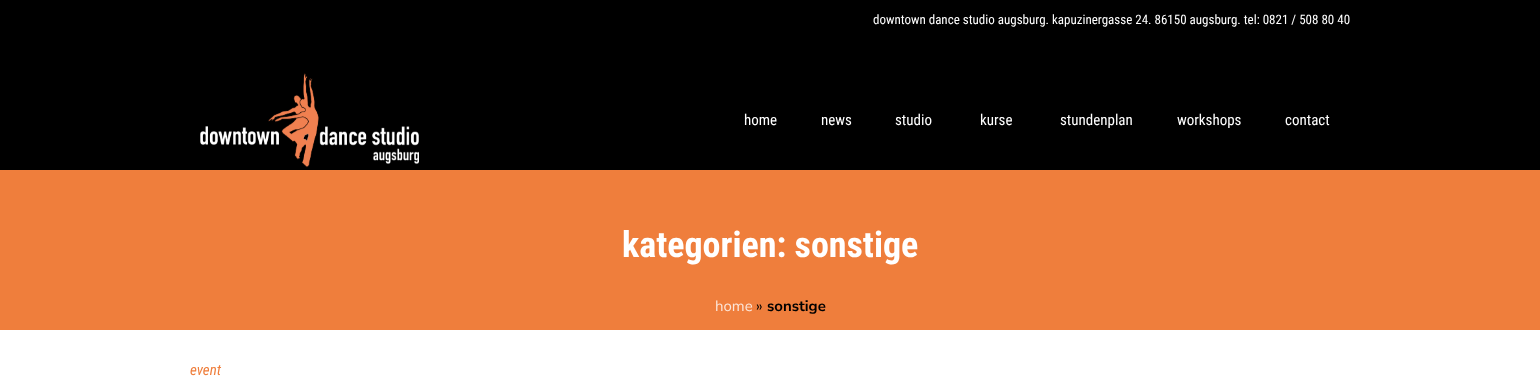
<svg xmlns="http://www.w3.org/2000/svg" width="1540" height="377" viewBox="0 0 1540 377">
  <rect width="100%" height="100%" fill="rgb(239,126,60)"/>
  <rect x="0" y="0" width="1540" height="170" fill="rgb(0,0,0)"/>
  <text x="873" y="24" font-family="Roboto Condensed" font-size="13" fill="rgb(255,255,255)">downtown dance studio augsburg. kapuzinergasse 24. 86150 augsburg. tel: 0821 / 508 80 40</text>
  <image x="200" y="73" width="219" height="95" href="pic1.png"/>
  <g font-family="Roboto Condensed" font-size="15" fill="rgb(255,255,255)">
    <text x="744" y="125">home</text>
    <text x="821" y="125">news</text>
    <text x="895" y="125">studio</text>
    <text x="980" y="125">kurse</text>
    <text x="1060" y="125">stundenplan</text>
    <text x="1177" y="125">workshops</text>
    <text x="1285" y="125">contact</text>
  </g>
  <text x="622" y="257" font-family="Roboto Condensed" font-size="36" font-weight="bold" fill="rgb(255,255,255)">kategorien: sonstige</text>
  <text x="715" y="311" font-family="Nunito Sans" font-size="15" fill="rgb(252,229,216)">home</text>
  <text x="756" y="311" font-family="Nunito Sans" font-size="15" fill="rgb(0,0,0)">»</text>
  <text x="767" y="311" font-family="Nunito Sans" font-size="15" font-weight="bold" fill="rgb(0,0,0)">sonstige</text>
  <rect x="0" y="330" width="1540" height="47" fill="rgb(255,255,255)"/>
  <text x="190" y="375" font-family="Roboto Condensed" font-size="15" font-style="italic" fill="rgb(239,126,60)">event</text>
</svg>
